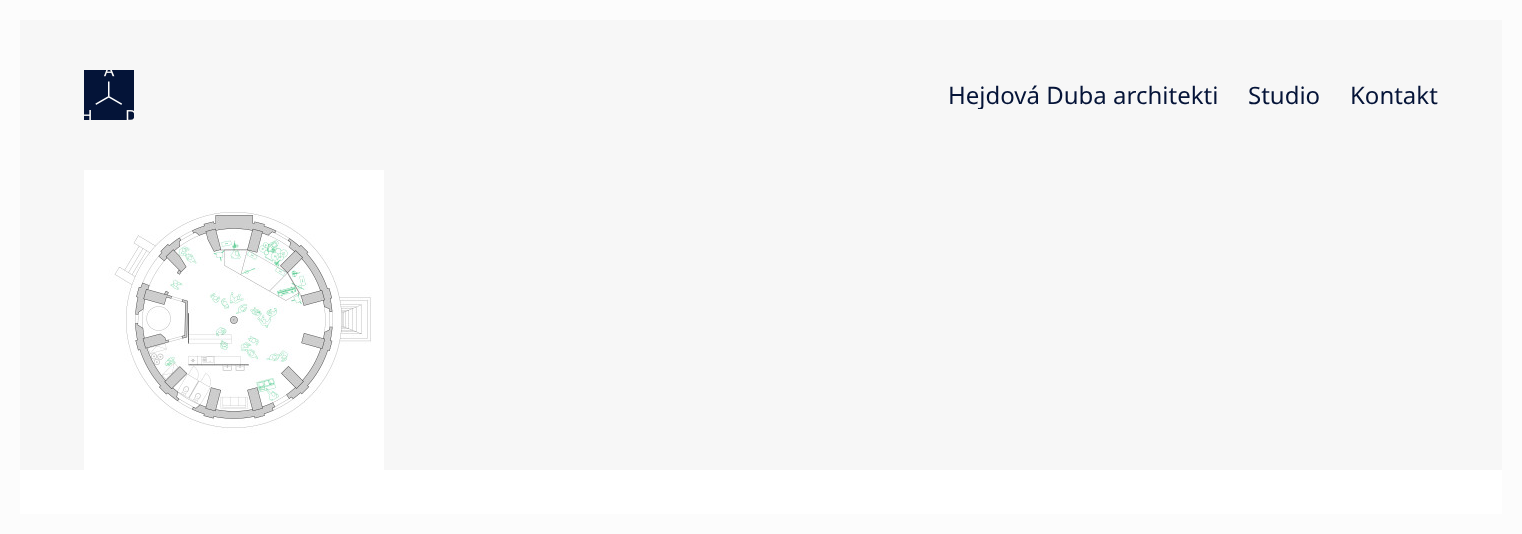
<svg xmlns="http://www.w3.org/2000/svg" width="1522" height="534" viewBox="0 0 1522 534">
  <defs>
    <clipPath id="clip1"><rect x="948" y="81" width="270" height="28"/></clipPath>
  </defs>
  <rect width="100%" height="100%" fill="rgb(247,247,247)"/>
  <image x="84" y="70" width="50" height="50" href="pic1.png"/>
  <image x="84" y="170" width="300" height="300" href="pic2.png"/>
  <rect x="20" y="470" width="1482" height="44" fill="rgb(255,255,255)"/>
  <rect x="10" y="10" width="1502" height="514" fill="none" stroke="rgb(252,252,252)" stroke-width="20"/>
  <g clip-path="url(#clip1)">
    <text x="948" y="104" font-family="Noto Sans" font-size="24" fill="rgb(5,20,56)">Hejdová Duba architekti</text>
  </g>
  <g font-family="Noto Sans" font-size="24" fill="rgb(5,20,56)">
    <text x="1248" y="104">Studio</text>
    <text x="1350" y="104">Kontakt</text>
  </g>
</svg>
